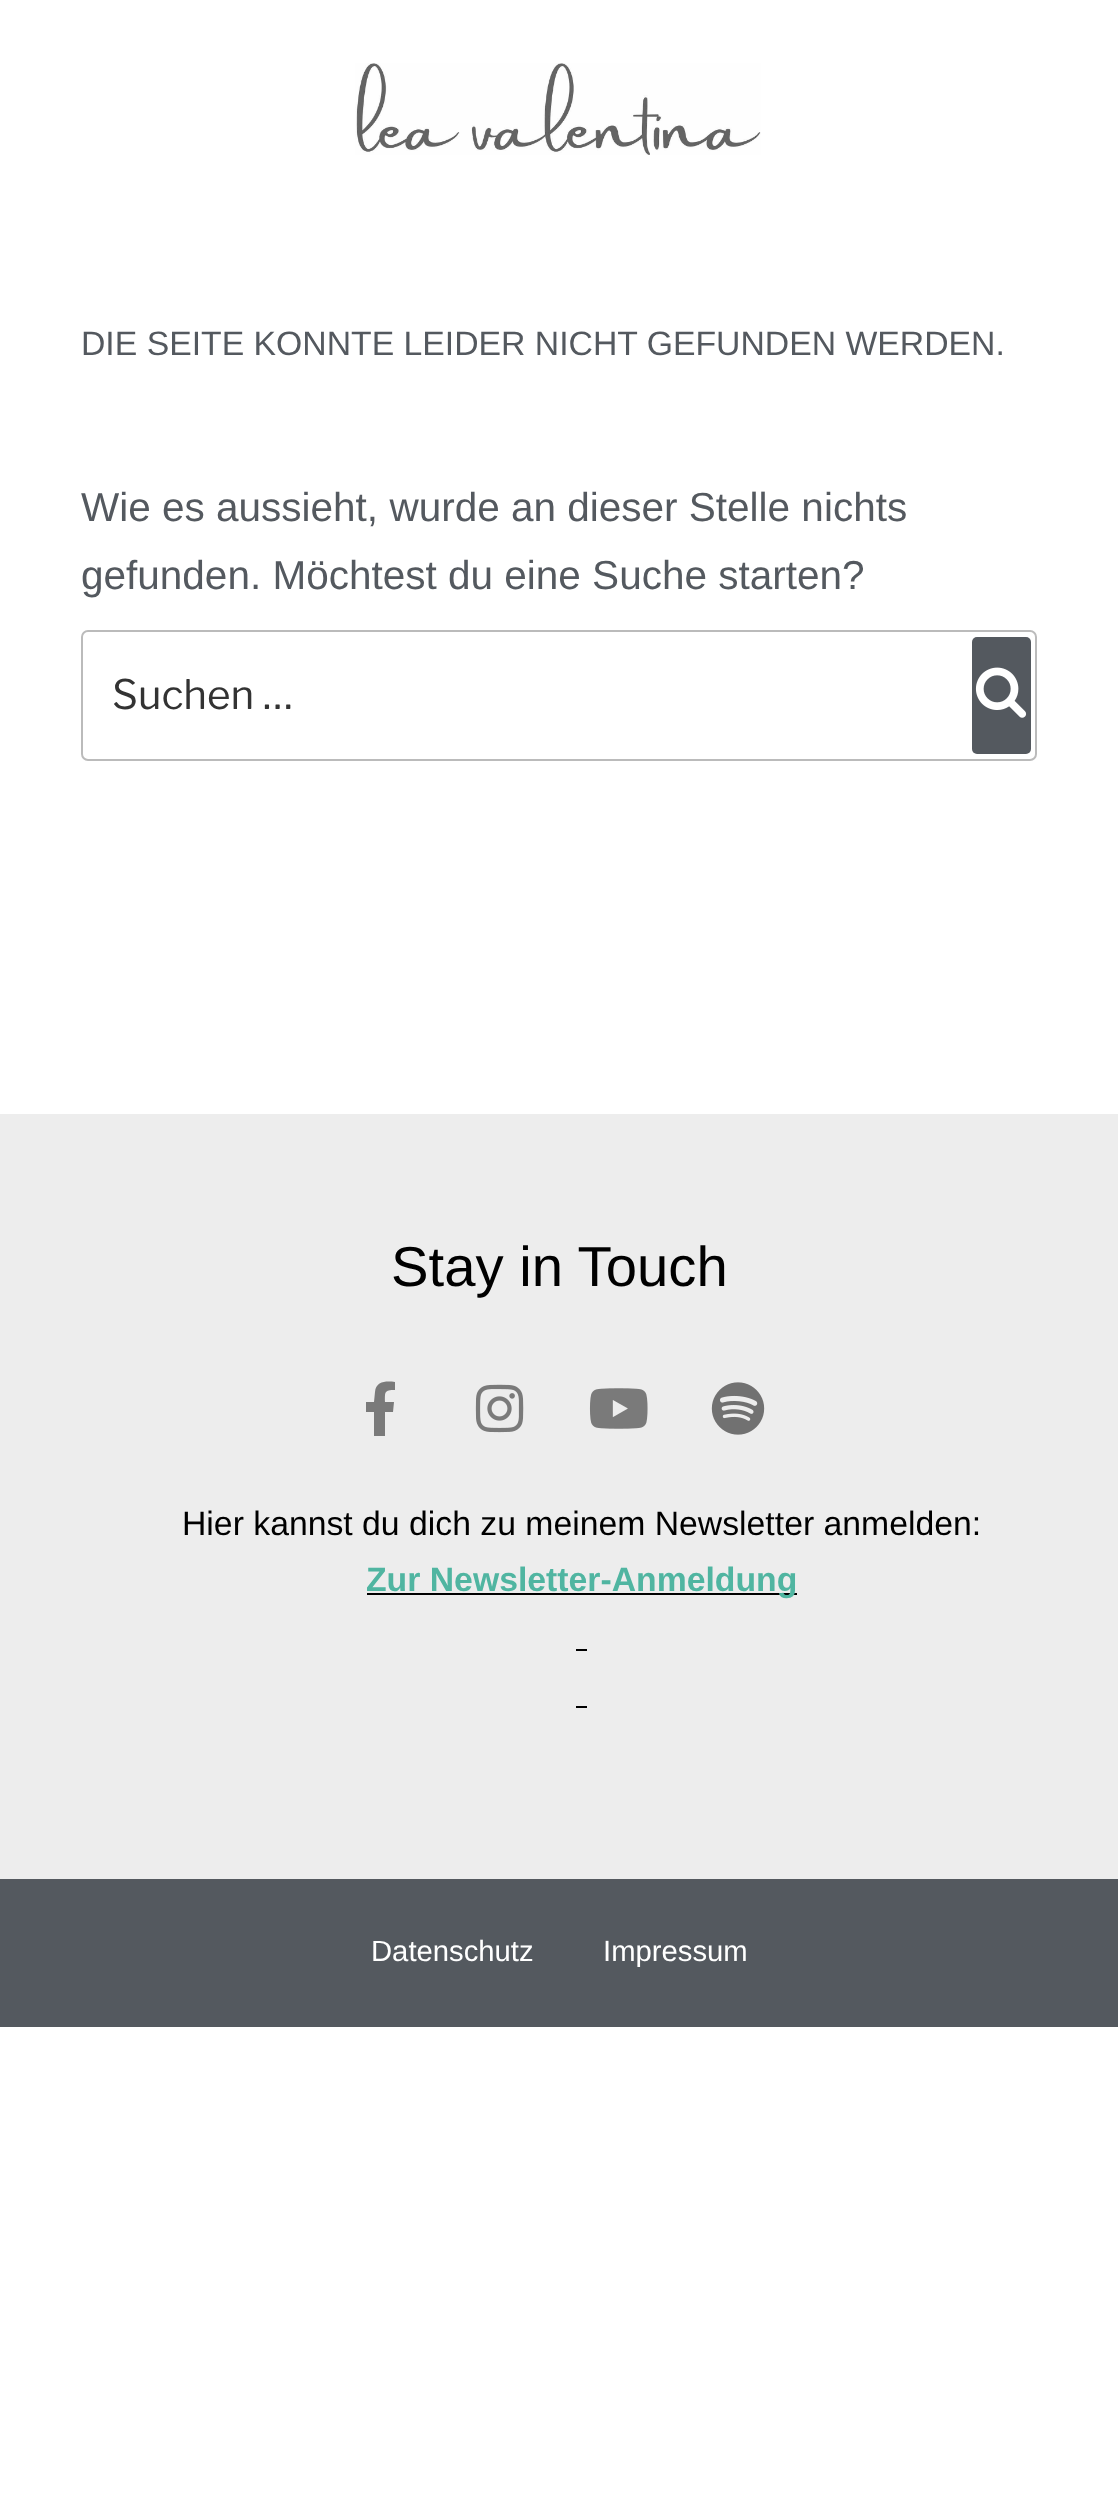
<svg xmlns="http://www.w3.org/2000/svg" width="1118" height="2502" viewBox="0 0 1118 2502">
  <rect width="100%" height="100%" fill="rgb(255,255,255)"/>
  <image x="355" y="63" width="406" height="92" href="pic1.png"/>
  <text x="81" y="355" font-family="Liberation Sans" font-size="33.75" fill="rgb(84,89,95)">DIE SEITE KONNTE LEIDER NICHT GEFUNDEN WERDEN.</text>
  <g font-family="Liberation Sans" font-size="40.5" fill="rgb(84,89,95)">
    <text>
      <tspan x="81" y="521">Wie es aussieht, wurde an dieser Stelle nichts</tspan>
      <tspan x="81" y="589">gefunden. Möchtest du eine Suche starten?</tspan>
    </text>
  </g>
  <rect x="82" y="631" width="954" height="129" rx="6" fill="none" stroke="rgb(187,187,187)" stroke-width="2"/>
  <text x="112" y="709" font-family="Libre Franklin" font-size="40.5" font-weight="100" fill="rgb(51,51,51)">Suchen …</text>
  <rect x="972" y="637" width="59" height="117" rx="5" fill="rgb(84,89,95)"/>
  <image x="975" y="667" width="52" height="51" href="pic2.png"/>
  <rect x="0" y="1114" width="1118" height="765" fill="rgb(237,237,237)"/>
  <text x="391" y="1286" font-family="Liberation Sans" font-size="56.25" fill="rgb(0,0,0)">Stay in Touch</text>
  <path d="M393 1412H385V1436H374V1412H366V1402H374L375 1392C376 1381 386 1381 395 1382V1390C384 1390 385 1392 385 1402H394Z" fill="rgb(122,122,122)"/>
  <image x="475" y="1384" width="49" height="49" href="pic3.png"/>
  <image x="589" y="1388" width="59" height="41" href="pic4.png"/>
  <image x="711" y="1382" width="54" height="53" href="pic5.png"/>
  <text x="182" y="1535" font-family="Liberation Sans" font-size="33.75" fill="rgb(0,0,0)">Hier kannst du dich zu meinem Newsletter anmelden:</text>
  <rect x="367" y="1593" width="430" height="2" fill="rgb(0,0,0)"/>
  <text x="366" y="1591" font-family="Liberation Sans" font-size="33.75" font-weight="bold" fill="rgb(80,181,161)">Zur Newsletter-Anmeldung</text>
  <rect x="576" y="1649" width="11" height="2" fill="rgb(0,0,0)"/>
  <rect x="576" y="1706" width="11" height="2" fill="rgb(0,0,0)"/>
  <rect x="0" y="1879" width="1118" height="148" fill="rgb(84,89,95)"/>
  <g font-family="Liberation Sans" font-size="29.25" fill="rgb(255,255,255)">
    <text x="371" y="1961">Datenschutz</text>
    <text x="603" y="1961">Impressum</text>
  </g>
</svg>
